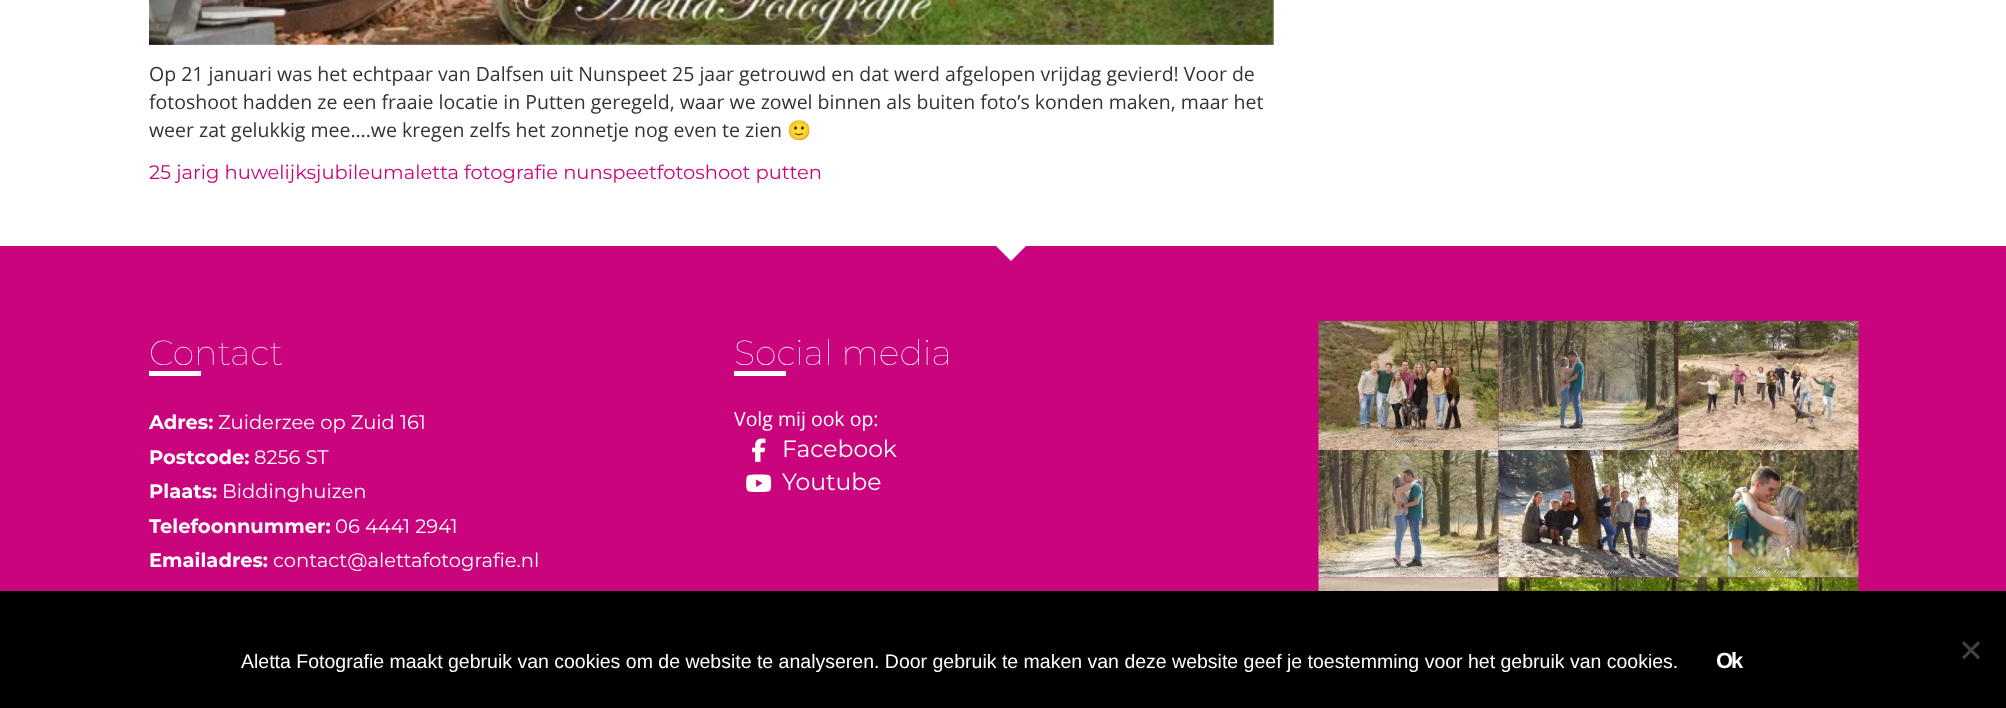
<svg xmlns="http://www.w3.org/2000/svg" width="2006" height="708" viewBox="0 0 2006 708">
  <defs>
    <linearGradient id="g1" gradientUnits="userSpaceOnUse" x1="148" y1="-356" x2="318" y2="-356"><stop offset="0" stop-color="rgb(0,0,0)" stop-opacity="0.25"/><stop offset="1" stop-color="rgb(0,0,0)" stop-opacity="0"/></linearGradient>
    <linearGradient id="g2" gradientUnits="userSpaceOnUse" x1="1106" y1="-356" x2="1274" y2="-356"><stop offset="0" stop-color="rgb(0,0,0)" stop-opacity="0"/><stop offset="1" stop-color="rgb(0,0,0)" stop-opacity="0.25"/></linearGradient>
    <clipPath id="clip1"><rect x="149" y="321" width="540" height="351"/></clipPath>
  </defs>
  <rect width="100%" height="100%" fill="rgb(255,255,255)"/>
  <image x="149" y="0" width="1125" height="45" href="pic1.png"/>
  <rect x="149" y="0" width="154" height="45" fill="url(#g1)"/>
  <rect x="1120" y="0" width="154" height="45" fill="url(#g2)"/>
  <g font-family="Open Sans" font-size="19.5" fill="rgb(51,51,51)">
    <text>
      <tspan x="149" y="81">Op 21 januari was het echtpaar van Dalfsen uit Nunspeet 25 jaar getrouwd en dat werd afgelopen vrijdag gevierd! Voor de</tspan>
      <tspan x="149" y="109">fotoshoot hadden ze een fraaie locatie in Putten geregeld, waar we zowel binnen als buiten foto’s konden maken, maar het</tspan>
      <tspan x="149" y="137">weer zat gelukkig mee….we kregen zelfs het zonnetje nog even te zien</tspan>
    </text>
  </g>
  <text x="787" y="137" font-family="Noto Color Emoji" font-size="19.5" fill="rgb(51,51,51)">🙂</text>
  <text x="149" y="179" font-family="Montserrat" font-size="19.5" fill="rgb(202,4,125)">25 jarig huwelijksjubileumaletta fotografie nunspeetfotoshoot putten</text>
  <rect x="0" y="246" width="2006" height="345" fill="rgb(202,4,125)"/>
  <path d="M996 246H1026L1011 261Z" fill="rgb(255,255,255)"/>
  <text x="149" y="365" font-family="Montserrat" font-size="35" font-weight="100" fill="rgb(255,255,255)">Contact</text>
  <rect x="149" y="371" width="52" height="5" fill="rgb(255,255,255)"/>
  <text x="149" y="429" font-family="Montserrat" font-size="19.5" font-weight="bold" fill="rgb(255,255,255)">Adres:</text>
  <text x="218" y="429" font-family="Montserrat" font-size="19.5" fill="rgb(255,255,255)">Zuiderzee op Zuid 161</text>
  <text x="149" y="464" font-family="Montserrat" font-size="19.5" font-weight="bold" fill="rgb(255,255,255)">Postcode:</text>
  <text x="254" y="464" font-family="Montserrat" font-size="19.5" fill="rgb(255,255,255)">8256 ST</text>
  <text x="149" y="498" font-family="Montserrat" font-size="19.5" font-weight="bold" fill="rgb(255,255,255)">Plaats:</text>
  <text x="222" y="498" font-family="Montserrat" font-size="19.5" fill="rgb(255,255,255)">Biddinghuizen</text>
  <g clip-path="url(#clip1)">
    <text x="149" y="533" font-family="Montserrat" font-size="19.5" font-weight="bold" fill="rgb(255,255,255)">Telefoonnummer:</text>
  </g>
  <text x="335" y="533" font-family="Montserrat" font-size="19.5" fill="rgb(255,255,255)">06 4441 2941</text>
  <text x="149" y="567" font-family="Montserrat" font-size="19.5" font-weight="bold" fill="rgb(255,255,255)">Emailadres:</text>
  <text x="273" y="567" font-family="Montserrat" font-size="19.5" fill="rgb(255,255,255)">contact@alettafotografie.nl</text>
  <text x="734" y="365" font-family="Montserrat" font-size="35" font-weight="100" fill="rgb(255,255,255)">Social media</text>
  <rect x="734" y="371" width="52" height="5" fill="rgb(255,255,255)"/>
  <text x="734" y="426" font-family="Open Sans" font-size="19.5" fill="rgb(255,255,255)">Volg mij ook op:</text>
  <image x="752" y="438" width="14" height="24" href="pic2.png"/>
  <text x="782" y="457" font-family="Montserrat" font-size="23.5" fill="rgb(255,255,255)">Facebook</text>
  <image x="746" y="474" width="26" height="18" href="pic3.png"/>
  <text x="782" y="490" font-family="Montserrat" font-size="23.5" fill="rgb(255,255,255)">Youtube</text>
  <image x="1318" y="321" width="181" height="129" href="pic4.png"/>
  <image x="1498" y="321" width="181" height="129" href="pic5.png"/>
  <image x="1678" y="321" width="181" height="129" href="pic6.png"/>
  <image x="1318" y="450" width="181" height="128" href="pic7.png"/>
  <image x="1498" y="450" width="181" height="128" href="pic8.png"/>
  <image x="1678" y="450" width="181" height="128" href="pic9.png"/>
  <image x="1318" y="577" width="181" height="14" href="pic10.png"/>
  <image x="1498" y="577" width="181" height="14" href="pic11.png"/>
  <image x="1678" y="577" width="181" height="14" href="pic12.png"/>
  <rect x="0" y="591" width="2006" height="117" fill="rgb(0,0,0)"/>
  <text x="241" y="668" font-family="Liberation Sans" font-size="19.5" fill="rgb(255,255,255)">Aletta Fotografie maakt gebruik van cookies om de website te analyseren. Door gebruik te maken van deze website geef je toestemming voor het gebruik van cookies.</text>
  <text x="1716" y="668" font-family="Liberation Sans" font-size="22" font-weight="bold" letter-spacing="-2" fill="rgb(255,255,255)">Ok</text>
  <path d="M1978 641L1980 643.5L1964 659.5L1962 657Z" fill="rgb(64,64,64)"/>
  <path d="M1962 643.5L1964 641L1980 657L1978 659.5Z" fill="rgb(64,64,64)"/>
</svg>
